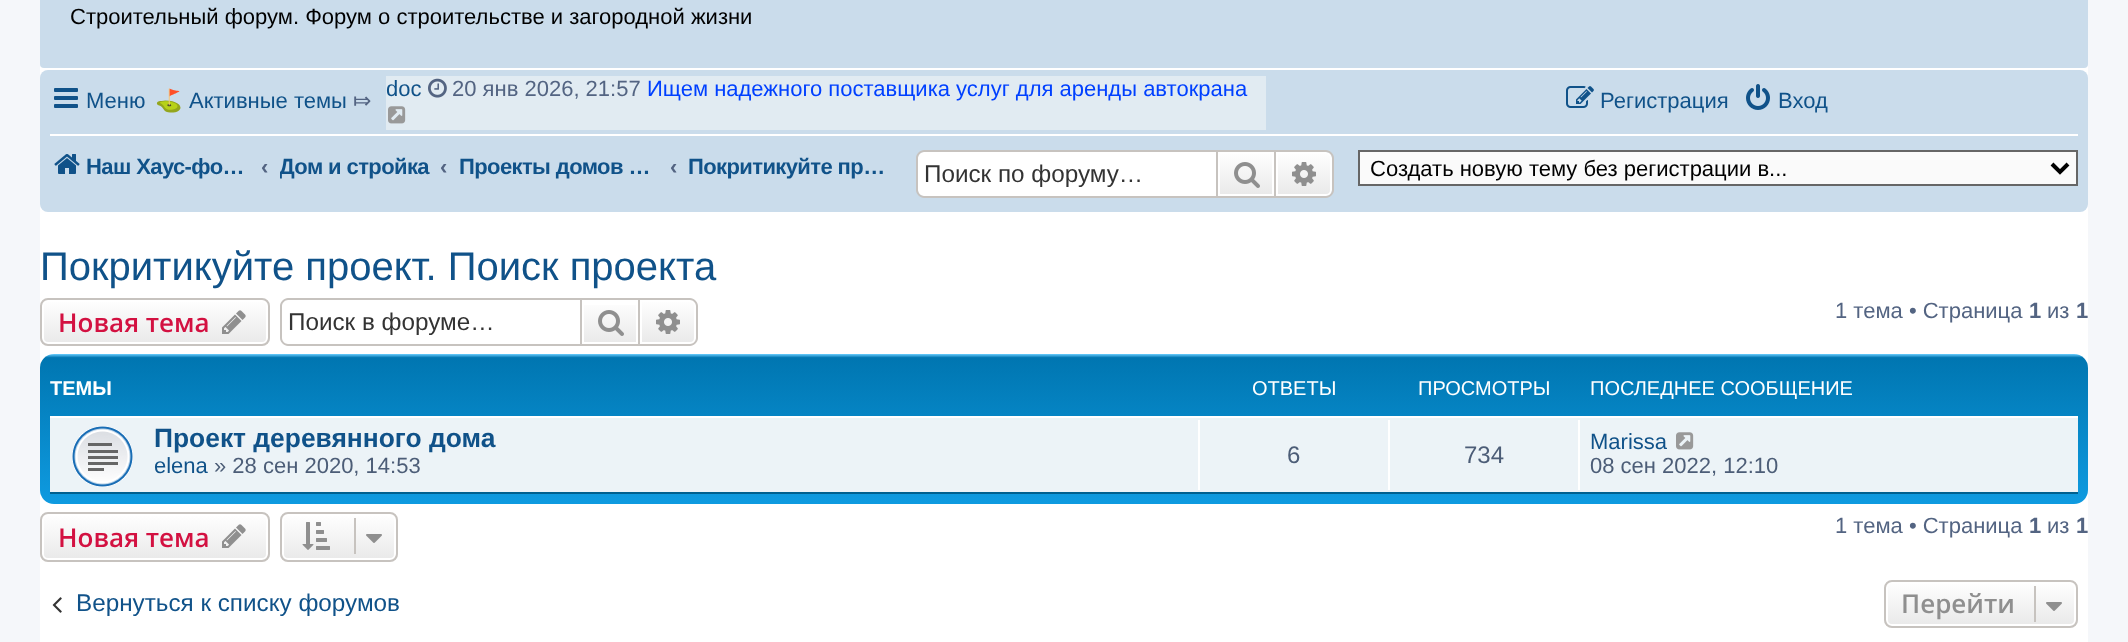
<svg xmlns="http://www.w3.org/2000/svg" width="2128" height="642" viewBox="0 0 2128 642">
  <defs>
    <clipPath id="clip1"><rect x="280" y="142" width="150" height="48"/></clipPath>
    <linearGradient id="g1" gradientUnits="userSpaceOnUse" x1="1246" y1="152" x2="1246" y2="196"><stop offset="0" stop-color="rgb(255,255,255)"/><stop offset="1" stop-color="rgb(233,233,233)"/></linearGradient>
    <linearGradient id="g2" gradientUnits="userSpaceOnUse" x1="1304" y1="152" x2="1304" y2="196"><stop offset="0" stop-color="rgb(255,255,255)"/><stop offset="1" stop-color="rgb(233,233,233)"/></linearGradient>
    <clipPath id="clip2"><rect x="40" y="298" width="230" height="48" rx="8"/></clipPath>
    <linearGradient id="g3" gradientUnits="userSpaceOnUse" x1="155" y1="300" x2="155" y2="344"><stop offset="0" stop-color="rgb(255,255,255)"/><stop offset="1" stop-color="rgb(233,233,233)"/></linearGradient>
    <linearGradient id="g4" gradientUnits="userSpaceOnUse" x1="610" y1="300" x2="610" y2="344"><stop offset="0" stop-color="rgb(255,255,255)"/><stop offset="1" stop-color="rgb(233,233,233)"/></linearGradient>
    <linearGradient id="g5" gradientUnits="userSpaceOnUse" x1="668" y1="300" x2="668" y2="344"><stop offset="0" stop-color="rgb(255,255,255)"/><stop offset="1" stop-color="rgb(233,233,233)"/></linearGradient>
    <linearGradient id="g6" gradientUnits="userSpaceOnUse" x1="1064" y1="354" x2="1064" y2="538"><stop offset="0" stop-color="rgb(106,206,255)"/><stop offset="0.02" stop-color="rgb(0,118,177)"/><stop offset="1" stop-color="rgb(18,163,235)"/></linearGradient>
    <clipPath id="clip3"><rect x="40" y="512" width="230" height="50" rx="8"/></clipPath>
    <linearGradient id="g7" gradientUnits="userSpaceOnUse" x1="155" y1="514" x2="155" y2="560"><stop offset="0" stop-color="rgb(255,255,255)"/><stop offset="1" stop-color="rgb(233,233,233)"/></linearGradient>
    <clipPath id="clip4"><rect x="280" y="512" width="118" height="50" rx="8"/></clipPath>
    <linearGradient id="g8" gradientUnits="userSpaceOnUse" x1="339" y1="514" x2="339" y2="560"><stop offset="0" stop-color="rgb(255,255,255)"/><stop offset="1" stop-color="rgb(233,233,233)"/></linearGradient>
    <clipPath id="clip5"><rect x="1884" y="580" width="194" height="48" rx="8"/></clipPath>
    <linearGradient id="g9" gradientUnits="userSpaceOnUse" x1="1981" y1="582" x2="1981" y2="626"><stop offset="0" stop-color="rgb(255,255,255)"/><stop offset="1" stop-color="rgb(233,233,233)"/></linearGradient>
  </defs>
  <rect width="100%" height="100%" fill="rgb(245,247,250)"/>
  <rect x="40" y="64" width="2048" height="578" fill="rgb(255,255,255)"/>
  <rect x="40" y="-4" width="2048" height="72" rx="4" fill="rgb(202,220,235)"/>
  <text x="70" y="24" font-family="Liberation Sans" font-size="22" fill="rgb(0,0,0)">Строительный форум. Форум о строительстве и загородной жизни</text>
  <rect x="40" y="70" width="2048" height="142" rx="8" fill="rgb(202,220,235)"/>
  <image x="54" y="88" width="24" height="20" href="pic1.png"/>
  <text x="86" y="108" font-family="Liberation Sans" font-size="22" fill="rgb(16,82,137)">Меню</text>
  <text x="155" y="108" font-family="Noto Color Emoji" font-size="22" fill="rgb(83,100,130)">⛳</text>
  <text x="189" y="108" font-family="Liberation Sans" font-size="22" fill="rgb(16,82,137)">Активные темы</text>
  <text x="353" y="108" font-family="DejaVu Sans" font-size="22" fill="rgb(83,100,130)">⤇</text>
  <rect x="386" y="76" width="880" height="54" fill="rgb(225,235,242)"/>
  <text x="386" y="96" font-family="Liberation Sans" font-size="22" fill="rgb(16,82,137)">doc</text>
  <image x="428" y="78" width="19" height="20" href="pic2.png"/>
  <text x="452" y="96" font-family="Liberation Sans" font-size="22" fill="rgb(83,100,130)">20 янв 2026, 21:57</text>
  <text x="647" y="96" font-family="Liberation Sans" font-size="22" fill="rgb(0,64,255)">Ищем надежного поставщика услуг для аренды автокрана</text>
  <image x="388" y="106" width="18" height="18" href="pic3.png"/>
  <image x="1566" y="86" width="28" height="22" href="pic4.png"/>
  <text x="1600" y="108" font-family="Liberation Sans" font-size="22" fill="rgb(16,82,137)">Регистрация</text>
  <image x="1746" y="84" width="24" height="26" href="pic5.png"/>
  <text x="1778" y="108" font-family="Liberation Sans" font-size="22" fill="rgb(16,82,137)">Вход</text>
  <rect x="50" y="134" width="2028" height="2" fill="rgb(255,255,255)"/>
  <image x="54" y="154" width="26" height="20" href="pic6.png"/>
  <text x="86" y="174" font-family="Liberation Sans" font-size="22" font-weight="bold" letter-spacing="-0.6" fill="rgb(16,82,137)">Наш Хаус-фо…</text>
  <text x="261" y="174" font-family="Liberation Sans" font-size="22" font-weight="bold" fill="rgb(83,100,130)">‹</text>
  <g clip-path="url(#clip1)">
    <text x="279" y="174" font-family="Liberation Sans" font-size="22" font-weight="bold" letter-spacing="-0.6" fill="rgb(16,82,137)">Дом и стройка</text>
  </g>
  <text x="440" y="174" font-family="Liberation Sans" font-size="22" font-weight="bold" fill="rgb(83,100,130)">‹</text>
  <text x="459" y="174" font-family="Liberation Sans" font-size="22" font-weight="bold" letter-spacing="-0.6" fill="rgb(16,82,137)">Проекты домов …</text>
  <text x="670" y="174" font-family="Liberation Sans" font-size="22" font-weight="bold" fill="rgb(83,100,130)">‹</text>
  <text x="688" y="174" font-family="Liberation Sans" font-size="22" font-weight="bold" letter-spacing="-0.6" fill="rgb(16,82,137)">Покритикуйте пр…</text>
  <path d="M924 152H1216V196H924C920.5 196 918 193.5 918 190V158C918 154.5 920.5 152 924 152Z" fill="rgb(255,255,255)"/>
  <path d="M924 150H1216V198H924C920 198 916 194 916 190V158C916 154 920 150 924 150ZM924 152H1216V196H924C921 196 918 193 918 190V158C918 155 921 152 924 152Z" fill="rgb(199,195,191)" fill-rule="evenodd"/>
  <text x="924" y="182" font-family="Liberation Sans" font-size="24.25" fill="rgb(51,51,51)">Поиск по форуму…</text>
  <rect x="1220" y="154" width="52" height="40" fill="url(#g1)"/>
  <rect x="1219" y="153" width="54" height="42" fill="none" stroke="rgb(255,255,255)" stroke-width="2"/>
  <rect x="1217" y="151" width="58" height="46" fill="none" stroke="rgb(199,195,191)" stroke-width="2"/>
  <image x="1234" y="162" width="26" height="26" href="pic7.png"/>
  <path d="M1277 153H1326C1329 153 1331 155 1331 158V190C1331 193 1329 195 1326 195H1277Z" fill="url(#g2)" stroke="rgb(255,255,255)" stroke-width="2"/>
  <path d="M1276 150H1326C1330 150 1334 154 1334 158V190C1334 194 1330 198 1326 198H1276ZM1276 152H1326C1329 152 1332 155 1332 158V190C1332 193 1329 196 1326 196H1276Z" fill="rgb(199,195,191)" fill-rule="evenodd"/>
  <image x="1292" y="162" width="24" height="24" href="pic8.png"/>
  <rect x="1359" y="151" width="718" height="34" fill="rgb(250,250,250)" stroke="rgb(102,102,102)" stroke-width="2"/>
  <path d="M2052 164L2060 172L2068 164" fill="none" stroke="rgb(0,0,0)" stroke-width="4"/>
  <text x="1370" y="176" font-family="Liberation Sans" font-size="22" fill="rgb(0,0,0)">Создать новую тему без регистрации в...</text>
  <text x="40" y="280" font-family="Liberation Sans" font-size="40" fill="rgb(16,82,137)">Покритикуйте проект. Поиск проекта</text>
  <g clip-path="url(#clip2)">
    <rect x="40" y="300" width="230" height="44" fill="url(#g3)"/>
  </g>
  <rect x="43" y="301" width="224" height="42" rx="5" fill="none" stroke="rgb(255,255,255)" stroke-width="2"/>
  <rect x="41" y="299" width="228" height="46" rx="7" fill="none" stroke="rgb(199,195,191)" stroke-width="2"/>
  <text x="58" y="332" font-family="Open Sans" font-size="26" font-weight="600" fill="rgb(211,17,65)">Новая тема</text>
  <image x="222" y="310" width="24" height="24" href="pic9.png"/>
  <path d="M288 298H580V346H288C284 346 280 342 280 338V306C280 302 284 298 288 298ZM288 300H580V344H288C285 344 282 341 282 338V306C282 303 285 300 288 300Z" fill="rgb(199,195,191)" fill-rule="evenodd"/>
  <text x="288" y="330" font-family="Liberation Sans" font-size="24.25" fill="rgb(51,51,51)">Поиск в форуме…</text>
  <rect x="584" y="305" width="52" height="37" fill="url(#g4)"/>
  <rect x="581" y="299" width="58" height="46" fill="none" stroke="rgb(199,195,191)" stroke-width="2"/>
  <image x="598" y="310" width="26" height="26" href="pic7.png"/>
  <path d="M641 301H690C693 301 695 303 695 306V338C695 341 693 343 690 343H641Z" fill="url(#g5)" stroke="rgb(255,255,255)" stroke-width="2"/>
  <path d="M640 298H690C694 298 698 302 698 306V338C698 342 694 346 690 346H640ZM640 300H690C693 300 696 303 696 306V338C696 341 693 344 690 344H640Z" fill="rgb(199,195,191)" fill-rule="evenodd"/>
  <image x="656" y="310" width="24" height="24" href="pic8.png"/>
  <text x="1835" y="318" font-family="Liberation Sans" font-size="22" fill="rgb(83,100,130)">1 тема • Страница</text>
  <text x="2029" y="318" font-family="Liberation Sans" font-size="22" font-weight="bold" fill="rgb(83,100,130)">1</text>
  <text x="2047" y="318" font-family="Liberation Sans" font-size="22" fill="rgb(83,100,130)">из</text>
  <text x="2076" y="318" font-family="Liberation Sans" font-size="22" font-weight="bold" fill="rgb(83,100,130)">1</text>
  <rect x="40" y="354" width="2048" height="150" rx="14" fill="url(#g6)"/>
  <text x="50" y="395" font-family="Liberation Sans" font-size="20" font-weight="bold" fill="rgb(255,255,255)">ТЕМЫ</text>
  <g font-family="Liberation Sans" font-size="20" fill="rgb(255,255,255)">
    <text x="1252" y="395">ОТВЕТЫ</text>
    <text x="1418" y="395">ПРОСМОТРЫ</text>
    <text x="1590" y="395">ПОСЛЕДНЕЕ СООБЩЕНИЕ</text>
  </g>
  <rect x="50" y="418" width="2028" height="74" fill="rgb(236,243,247)"/>
  <rect x="50" y="416" width="2028" height="2" fill="rgb(255,255,255)"/>
  <rect x="50" y="492" width="2028" height="2" fill="rgb(0,96,143)"/>
  <image x="72" y="426" width="61" height="61" href="pic10.png"/>
  <text x="154" y="447" font-family="Liberation Sans" font-size="26.4" font-weight="bold" fill="rgb(16,82,137)">Проект деревянного дома</text>
  <text x="154" y="473" font-family="Liberation Sans" font-size="22" fill="rgb(16,82,137)">elena</text>
  <text x="214" y="473" font-family="Liberation Sans" font-size="22" fill="rgb(76,93,119)">» 28 сен 2020, 14:53</text>
  <rect x="1198" y="420" width="2" height="70" fill="rgb(255,255,255)"/>
  <text x="1287" y="463" font-family="Liberation Sans" font-size="24" fill="rgb(76,93,119)">6</text>
  <rect x="1388" y="420" width="2" height="70" fill="rgb(255,255,255)"/>
  <text x="1464" y="463" font-family="Liberation Sans" font-size="24" fill="rgb(76,93,119)">734</text>
  <rect x="1578" y="420" width="2" height="70" fill="rgb(255,255,255)"/>
  <text x="1590" y="449" font-family="Liberation Sans" font-size="22" fill="rgb(16,82,137)">Marissa</text>
  <image x="1676" y="432" width="18" height="18" href="pic11.png"/>
  <text x="1590" y="473" font-family="Liberation Sans" font-size="22" fill="rgb(76,93,119)">08 сен 2022, 12:10</text>
  <g clip-path="url(#clip3)">
    <rect x="40" y="514" width="230" height="46" fill="url(#g7)"/>
  </g>
  <rect x="43" y="515" width="224" height="44" rx="5" fill="none" stroke="rgb(255,255,255)" stroke-width="2"/>
  <rect x="41" y="513" width="228" height="48" rx="7" fill="none" stroke="rgb(199,195,191)" stroke-width="2"/>
  <text x="58" y="547" font-family="Open Sans" font-size="26" font-weight="600" fill="rgb(211,17,65)">Новая тема</text>
  <image x="222" y="524" width="24" height="24" href="pic12.png"/>
  <g clip-path="url(#clip4)">
    <rect x="280" y="514" width="118" height="46" fill="url(#g8)"/>
  </g>
  <rect x="283" y="515" width="112" height="44" rx="5" fill="none" stroke="rgb(255,255,255)" stroke-width="2"/>
  <rect x="281" y="513" width="116" height="48" rx="7" fill="none" stroke="rgb(199,195,191)" stroke-width="2"/>
  <image x="302" y="522" width="28" height="28" href="pic13.png"/>
  <rect x="354" y="518" width="2" height="36" fill="rgb(199,195,191)"/>
  <image x="366" y="534" width="16" height="9" href="pic14.png"/>
  <text x="1835" y="533" font-family="Liberation Sans" font-size="22" fill="rgb(83,100,130)">1 тема • Страница</text>
  <text x="2029" y="533" font-family="Liberation Sans" font-size="22" font-weight="bold" fill="rgb(83,100,130)">1</text>
  <text x="2047" y="533" font-family="Liberation Sans" font-size="22" fill="rgb(83,100,130)">из</text>
  <text x="2076" y="533" font-family="Liberation Sans" font-size="22" font-weight="bold" fill="rgb(83,100,130)">1</text>
  <image x="52" y="597" width="10" height="16" href="pic15.png"/>
  <text x="76" y="611" font-family="Liberation Sans" font-size="24.25" fill="rgb(16,82,137)">Вернуться к списку форумов</text>
  <g clip-path="url(#clip5)">
    <rect x="1884" y="582" width="194" height="44" fill="url(#g9)"/>
  </g>
  <rect x="1887" y="583" width="188" height="42" rx="5" fill="none" stroke="rgb(255,255,255)" stroke-width="2"/>
  <rect x="1885" y="581" width="192" height="46" rx="7" fill="none" stroke="rgb(199,195,191)" stroke-width="2"/>
  <text x="1901" y="613" font-family="Open Sans" font-size="26" font-weight="600" fill="rgb(143,143,143)">Перейти</text>
  <rect x="2034" y="586" width="2" height="36" fill="rgb(199,195,191)"/>
  <image x="2046" y="602" width="16" height="9" href="pic16.png"/>
</svg>
